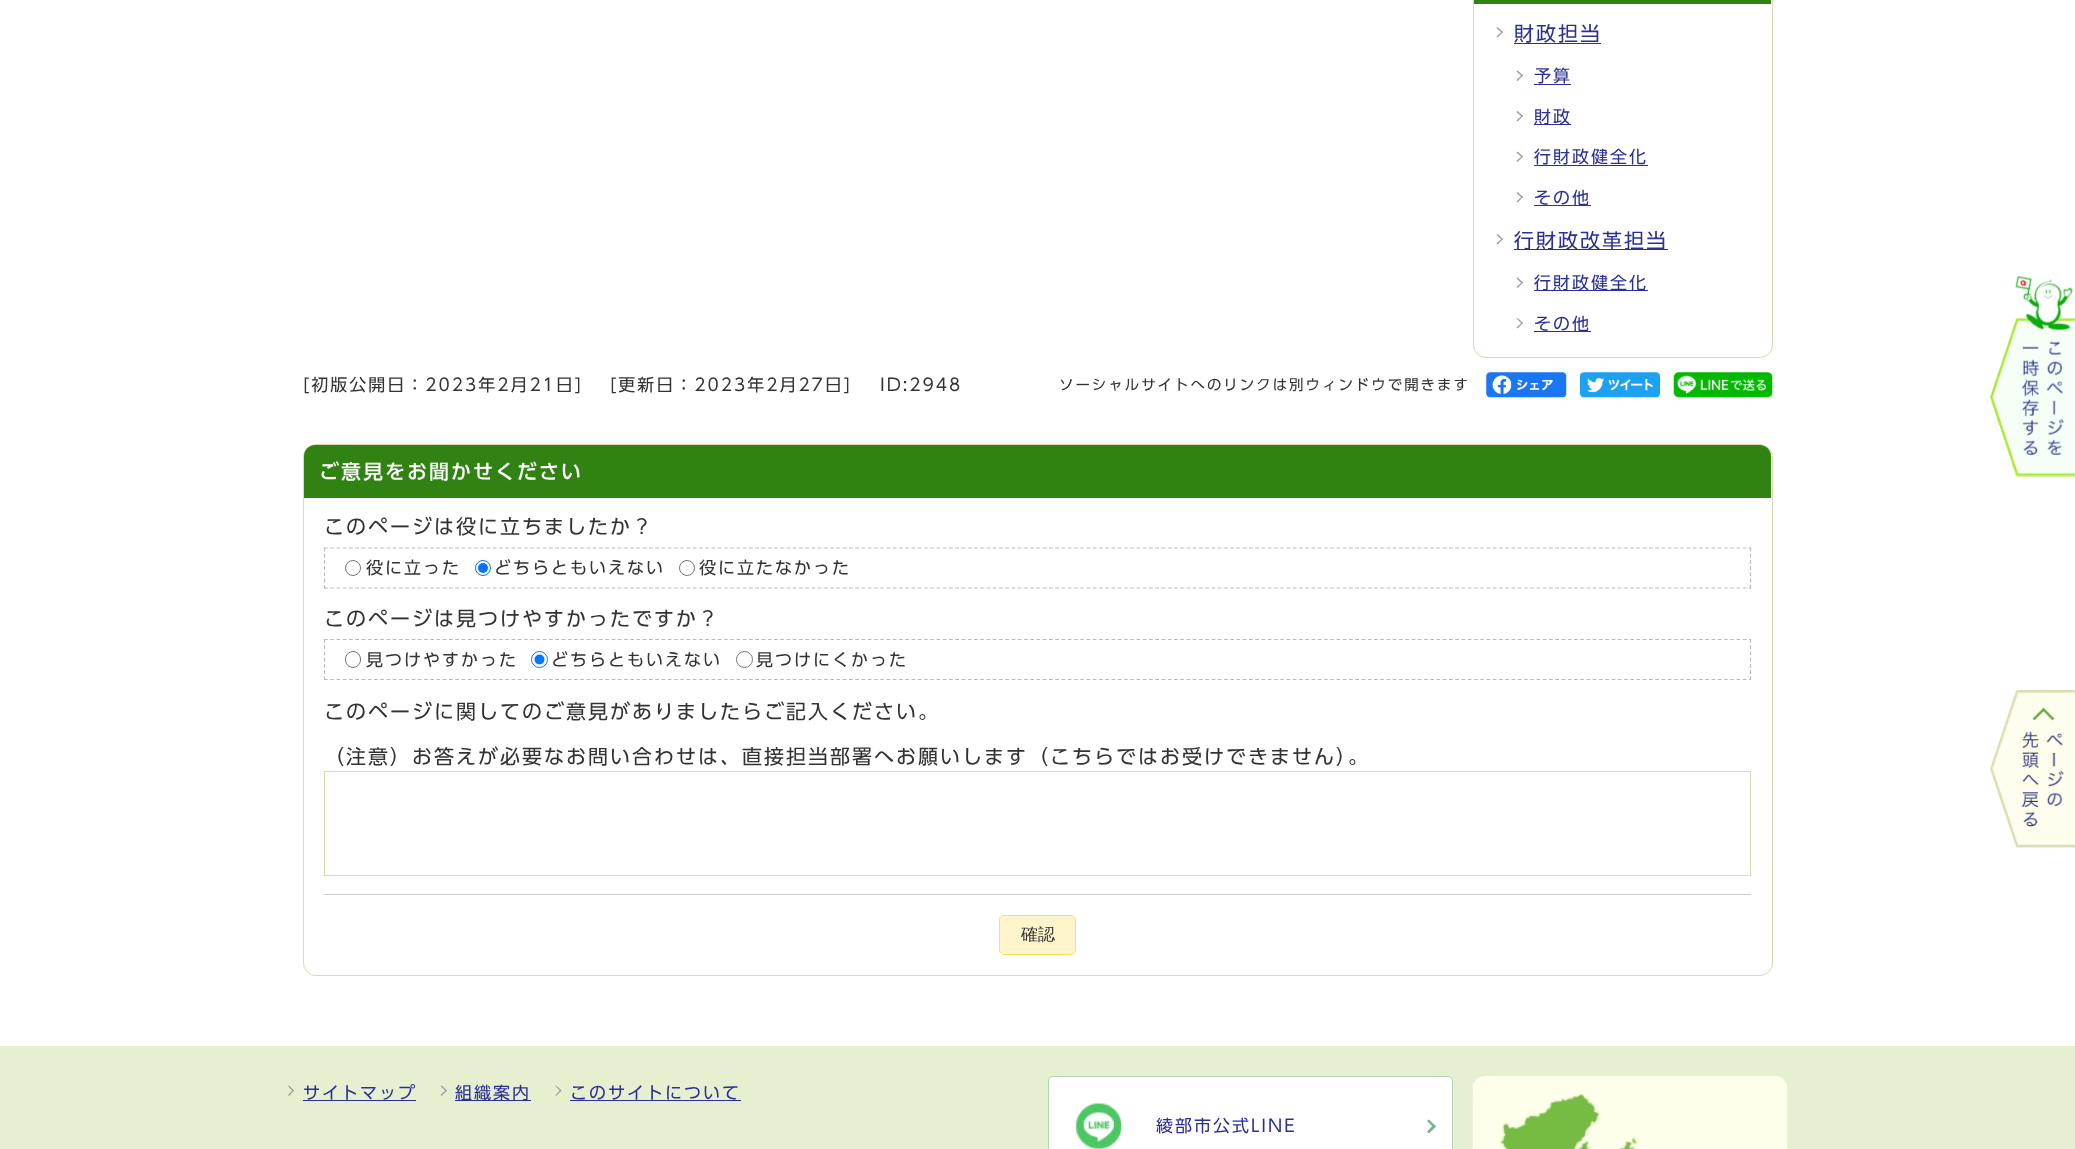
<svg xmlns="http://www.w3.org/2000/svg" width="2075" height="1149" viewBox="0 0 2075 1149">
  <rect width="100%" height="100%" fill="rgb(255,255,255)"/>
  <rect x="1473.5" y="-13.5" width="299" height="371" rx="12.5" fill="none" stroke="rgb(217,219,176)"/>
  <rect x="1474" y="0" width="297" height="4" fill="rgb(48,130,18)"/>
  <path d="M1496.5 28L1497.5 27L1503 32L1502 33Z" fill="rgb(153,153,153)"/>
  <path d="M1496.5 36.5L1502 31.5L1503 32L1497.5 37.5Z" fill="rgb(153,153,153)"/>
  <text x="1514" y="41" font-family="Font" font-size="20" letter-spacing="2" fill="rgb(43,48,149)">財政担当</text>
  <rect x="1514" y="43" width="87" height="1" fill="rgb(43,48,149)"/>
  <path d="M1516.5 71.5L1517.5 70.5L1523 75.5L1522 76.5Z" fill="rgb(153,153,153)"/>
  <path d="M1516.5 80L1522 75L1523 75.5L1517.5 81Z" fill="rgb(153,153,153)"/>
  <text x="1534" y="82" font-family="Font" font-size="17" letter-spacing="2" fill="rgb(43,48,149)">予算</text>
  <rect x="1534" y="84" width="37" height="1" fill="rgb(43,48,149)"/>
  <path d="M1516.5 112L1517.5 111L1523 116L1522 117Z" fill="rgb(153,153,153)"/>
  <path d="M1516.5 120.5L1522 115.5L1523 116L1517.5 121.5Z" fill="rgb(153,153,153)"/>
  <rect x="1534" y="124" width="37" height="1" fill="rgb(43,48,149)"/>
  <text x="1534" y="123" font-family="Font" font-size="17" letter-spacing="2" fill="rgb(43,48,149)">財政</text>
  <path d="M1516.5 152.5L1517.5 151.5L1523 156.5L1522 157.5Z" fill="rgb(153,153,153)"/>
  <path d="M1516.5 161L1522 156L1523 156.5L1517.5 162Z" fill="rgb(153,153,153)"/>
  <text x="1534" y="163" font-family="Font" font-size="17" letter-spacing="2" fill="rgb(43,48,149)">行財政健全化</text>
  <rect x="1534" y="165" width="114" height="1" fill="rgb(43,48,149)"/>
  <path d="M1516.5 193L1517.5 192L1523 197L1522 198Z" fill="rgb(153,153,153)"/>
  <path d="M1516.5 201.5L1522 196.5L1523 197L1517.5 202.5Z" fill="rgb(153,153,153)"/>
  <rect x="1534" y="205" width="57" height="1" fill="rgb(43,48,149)"/>
  <text x="1534" y="204" font-family="Font" font-size="17" letter-spacing="2" fill="rgb(43,48,149)">その他</text>
  <path d="M1496.5 235L1497.5 234L1503 239L1502 240Z" fill="rgb(153,153,153)"/>
  <path d="M1496.5 243.5L1502 238.5L1503 239L1497.5 244.5Z" fill="rgb(153,153,153)"/>
  <rect x="1514" y="249" width="154" height="1" fill="rgb(43,48,149)"/>
  <text x="1514" y="248" font-family="Font" font-size="20" letter-spacing="2" fill="rgb(43,48,149)">行財政改革担当</text>
  <path d="M1516.5 278.5L1517.5 277.5L1523 282.5L1522 283.5Z" fill="rgb(153,153,153)"/>
  <path d="M1516.5 287L1522 282L1523 282.5L1517.5 288Z" fill="rgb(153,153,153)"/>
  <rect x="1534" y="290" width="114" height="1" fill="rgb(43,48,149)"/>
  <text x="1534" y="289" font-family="Font" font-size="17" letter-spacing="2" fill="rgb(43,48,149)">行財政健全化</text>
  <path d="M1516.5 318.5L1517.5 318L1523 323L1522 324Z" fill="rgb(153,153,153)"/>
  <path d="M1516.5 327.5L1522 322.5L1523 323L1517.5 328.5Z" fill="rgb(153,153,153)"/>
  <rect x="1534" y="331" width="57" height="1" fill="rgb(43,48,149)"/>
  <text x="1534" y="330" font-family="Font" font-size="17" letter-spacing="2" fill="rgb(43,48,149)">その他</text>
  <g font-family="Font" font-size="17" letter-spacing="2" fill="rgb(51,51,51)">
    <text x="303" y="391">[初版公開日：2023年2月21日]</text>
    <text x="610" y="391">[更新日：2023年2月27日]</text>
    <text x="880" y="391">ID:2948</text>
  </g>
  <text x="1059" y="390" font-family="Font" font-size="14.45" letter-spacing="2" fill="rgb(51,51,51)">ソーシャルサイトへのリンクは別ウィンドウで開きます</text>
  <image x="1486" y="372" width="81" height="26" href="pic1.png"/>
  <image x="1580" y="372" width="80" height="26" href="pic2.png"/>
  <image x="1673" y="372" width="100" height="26" href="pic3.png"/>
  <rect x="303.5" y="444.5" width="1469" height="531" rx="12.5" fill="none" stroke="rgb(217,219,176)"/>
  <path d="M315 445H1760C1766 445 1771 450 1771 456V498H304V456C304 450 309 445 315 445Z" fill="rgb(48,130,18)"/>
  <text x="319" y="479" font-family="Font" font-size="20" font-weight="500" letter-spacing="2" fill="rgb(255,255,255)">ご意見をお聞かせください</text>
  <text x="324" y="534" font-family="Font" font-size="20" letter-spacing="2" fill="rgb(51,51,51)">このページは役に立ちましたか？</text>
  <path d="M324 548H1751" fill="none" stroke="rgb(187,187,187)" stroke-width="1.2" stroke-dasharray="3.75 2.5"/>
  <path d="M1750.5 547.5V589" fill="none" stroke="rgb(187,187,187)" stroke-width="1.2" stroke-dasharray="3.75 2.5"/>
  <path d="M324 588H1751" fill="none" stroke="rgb(187,187,187)" stroke-width="1.2" stroke-dasharray="3.75 2.5"/>
  <path d="M324.5 547.5V589" fill="none" stroke="rgb(187,187,187)" stroke-width="1.2" stroke-dasharray="3.75 2.5"/>
  <circle cx="353" cy="568" r="7.5" fill="none" stroke="rgb(118,118,118)"/>
  <text x="366" y="574" font-family="Font" font-size="17" letter-spacing="2" fill="rgb(51,51,51)">役に立った</text>
  <circle cx="483" cy="568" r="7.5" fill="none" stroke="rgb(0,117,255)"/>
  <circle cx="483" cy="568" r="5" fill="rgb(0,117,255)"/>
  <text x="494" y="574" font-family="Font" font-size="17" letter-spacing="2" fill="rgb(51,51,51)">どちらともいえない</text>
  <circle cx="687" cy="568" r="7.5" fill="none" stroke="rgb(118,118,118)"/>
  <text x="699" y="574" font-family="Font" font-size="17" letter-spacing="2" fill="rgb(51,51,51)">役に立たなかった</text>
  <text x="324" y="626" font-family="Font" font-size="20" letter-spacing="2" fill="rgb(51,51,51)">このページは見つけやすかったですか？</text>
  <path d="M324 639.5H1751" fill="none" stroke="rgb(187,187,187)" stroke-width="1.2" stroke-dasharray="3.75 2.5"/>
  <path d="M1750.5 639V680" fill="none" stroke="rgb(187,187,187)" stroke-width="1.2" stroke-dasharray="3.75 2.5"/>
  <path d="M324 679.5H1751" fill="none" stroke="rgb(187,187,187)" stroke-width="1.2" stroke-dasharray="3.75 2.5"/>
  <path d="M324.5 639V680" fill="none" stroke="rgb(187,187,187)" stroke-width="1.2" stroke-dasharray="3.75 2.5"/>
  <rect x="345.5" y="651.5" width="15" height="16" rx="7.5" fill="none" stroke="rgb(118,118,118)"/>
  <text x="366" y="666" font-family="Font" font-size="17" letter-spacing="2" fill="rgb(51,51,51)">見つけやすかった</text>
  <circle cx="539.5" cy="659.5" r="8" fill="none" stroke="rgb(0,117,255)"/>
  <circle cx="539.5" cy="659.5" r="5" fill="rgb(0,117,255)"/>
  <text x="551" y="666" font-family="Font" font-size="17" letter-spacing="2" fill="rgb(51,51,51)">どちらともいえない</text>
  <circle cx="744.5" cy="659.5" r="8" fill="none" stroke="rgb(118,118,118)"/>
  <text x="756" y="666" font-family="Font" font-size="17" letter-spacing="2" fill="rgb(51,51,51)">見つけにくかった</text>
  <g font-family="Font" font-size="20" letter-spacing="2" fill="rgb(51,51,51)">
    <text x="324" y="719">このページに関してのご意見がありましたらご記入ください。</text>
    <text x="324" y="764">（注意）お答えが必要なお問い合わせは、直接担当部署へお願いします（こちらではお受けできません）。</text>
  </g>
  <rect x="324.5" y="771.5" width="1426" height="104" fill="none" stroke="rgb(217,219,176)"/>
  <rect x="324" y="894" width="1427" height="1" fill="rgb(204,204,204)"/>
  <rect x="999.5" y="915.5" width="76" height="39" rx="4.5" fill="rgb(255,245,204)" stroke="rgb(255,224,92)"/>
  <text x="1021" y="940" font-family="WenQuanYi Zen Hei" font-size="17" font-weight="500" fill="rgb(51,51,51)">確認</text>
  <image x="1990" y="276" width="85" height="201" href="pic4.png"/>
  <image x="1990" y="690" width="85" height="158" href="pic5.png"/>
  <rect x="0" y="1046" width="2075" height="103" fill="rgb(230,240,208)"/>
  <path d="M288 1086L289 1085.5L294 1090.5L293 1091.5Z" fill="rgb(153,153,153)"/>
  <path d="M288 1095L293 1090L294 1090.5L289 1096Z" fill="rgb(153,153,153)"/>
  <text x="303" y="1099" font-family="Font" font-size="17" letter-spacing="2" fill="rgb(43,48,149)">サイトマップ</text>
  <rect x="303" y="1100" width="113" height="1" fill="rgb(43,48,149)"/>
  <path d="M440.5 1086L441.5 1085.5L447 1090.5L446 1091.5Z" fill="rgb(153,153,153)"/>
  <path d="M440.5 1095L446 1090L447 1090.5L441.5 1096Z" fill="rgb(153,153,153)"/>
  <rect x="455" y="1100" width="76" height="1" fill="rgb(43,48,149)"/>
  <text x="455" y="1099" font-family="Font" font-size="17" letter-spacing="2" fill="rgb(43,48,149)">組織案内</text>
  <path d="M555.5 1086L556 1085.5L561.5 1090.5L560.5 1091.5Z" fill="rgb(153,153,153)"/>
  <path d="M555.5 1095L560.5 1090L561.5 1090.5L556 1096Z" fill="rgb(153,153,153)"/>
  <text x="570" y="1099" font-family="Font" font-size="17" letter-spacing="2" fill="rgb(43,48,149)">このサイトについて</text>
  <rect x="570" y="1100" width="171" height="1" fill="rgb(43,48,149)"/>
  <image x="1472" y="1076" width="316" height="73" href="pic6.png"/>
  <rect x="1048.5" y="1076.5" width="404" height="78" rx="4.5" fill="rgb(255,255,255)" stroke="rgb(177,211,181)"/>
  <image x="1076" y="1103" width="46" height="46" href="pic7.png"/>
  <text x="1156" y="1132" font-family="Font" font-size="17" letter-spacing="2" fill="rgb(43,48,149)">綾部市公式LINE</text>
  <path d="M1427 1121L1429 1119.5L1436 1126.5L1434 1128Z" fill="rgb(119,180,144)"/>
  <path d="M1427 1131.5L1434 1124.5L1436 1126.5L1429 1133.5Z" fill="rgb(119,180,144)"/>
</svg>
